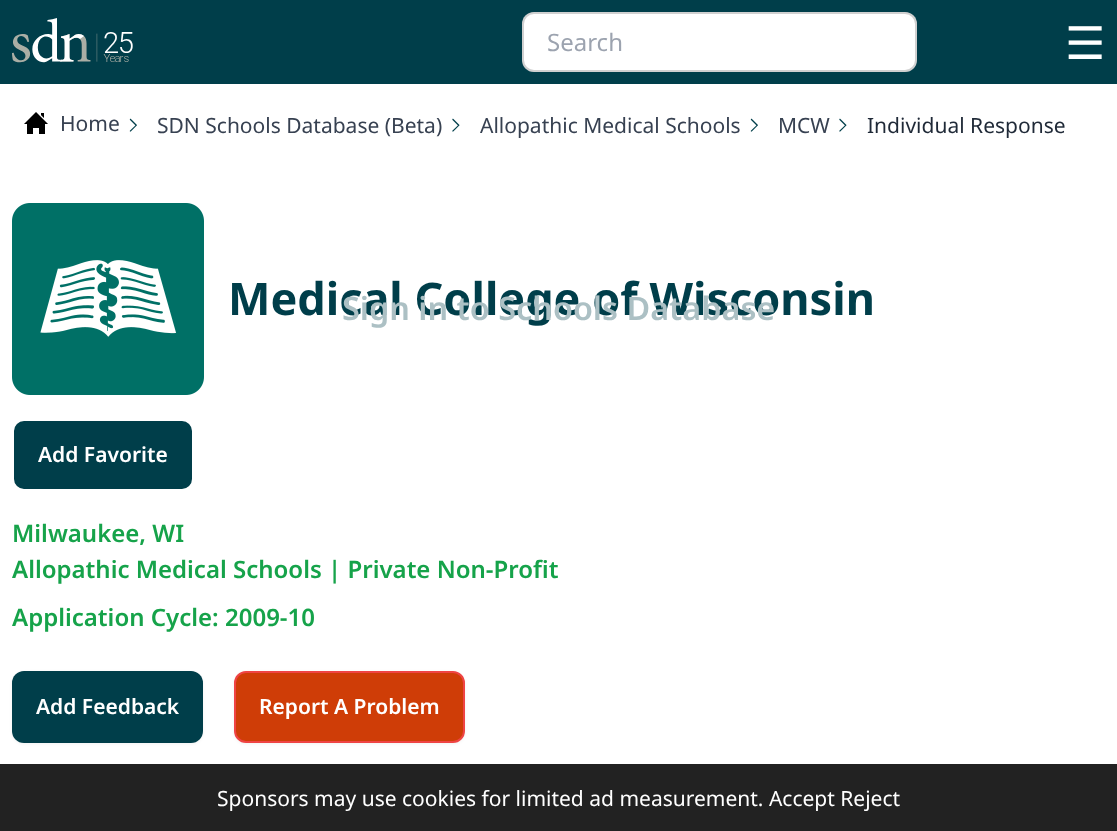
<svg xmlns="http://www.w3.org/2000/svg" width="1117" height="831" viewBox="0 0 1117 831">
  <rect width="100%" height="100%" fill="rgb(255,255,255)"/>
  <rect x="0" y="0" width="1117" height="84" fill="rgb(0,62,74)"/>
  <image x="12" y="18" width="121" height="45" href="pic1.png"/>
  <rect x="522" y="12" width="395" height="60" rx="12" fill="rgb(255,255,255)"/>
  <rect x="523" y="13" width="393" height="58" rx="11" fill="none" stroke="rgba(22,22,22,0.2)" stroke-width="2"/>
  <text x="547" y="51" font-family="Noto Sans" font-size="24" fill="rgb(156,163,175)">Search</text>
  <text x="1065" y="59" font-family="DejaVu Sans" font-size="45" fill="rgb(255,255,255)">☰</text>
  <image x="24" y="112" width="24" height="22" href="pic2.png"/>
  <text x="60" y="131" font-family="Noto Sans" font-size="21" fill="rgb(55,65,81)">Home</text>
  <image x="129" y="118" width="8" height="14" href="pic3.png"/>
  <text x="157" y="133" font-family="Noto Sans" font-size="21" fill="rgb(55,65,81)">SDN Schools Database (Beta)</text>
  <image x="452" y="118" width="8" height="14" href="pic4.png"/>
  <text x="480" y="133" font-family="Noto Sans" font-size="21" fill="rgb(55,65,81)">Allopathic Medical Schools</text>
  <image x="750" y="118" width="8" height="14" href="pic3.png"/>
  <text x="778" y="133" font-family="Noto Sans" font-size="21" fill="rgb(55,65,81)">MCW</text>
  <image x="839" y="118" width="8" height="14" href="pic4.png"/>
  <text x="867" y="133" font-family="Noto Sans" font-size="21" fill="rgb(31,41,55)">Individual Response</text>
  <image x="12" y="203" width="192" height="192" href="pic5.png"/>
  <text x="228" y="315" font-family="Noto Sans" font-size="45" font-weight="bold" fill="rgb(0,62,74)">Medical College of Wisconsin</text>
  <rect x="13" y="420" width="180" height="70" rx="11" fill="rgb(0,62,74)" stroke="rgb(255,255,255)" stroke-width="2"/>
  <text x="38" y="462" font-family="Noto Sans" font-size="21" font-weight="600" fill="rgb(255,255,255)">Add Favorite</text>
  <g font-family="Noto Sans" font-size="24" font-weight="600" fill="rgb(22,163,74)">
    <text>
      <tspan x="12" y="542">Milwaukee, WI</tspan>
      <tspan x="12" y="578">Allopathic Medical Schools | Private Non-Profit</tspan>
    </text>
    <text x="12" y="626">Application Cycle: 2009-10</text>
  </g>
  <rect x="12" y="672" width="191" height="72" rx="12" fill="rgba(0,0,0,0.05)" filter="blur(1.5px)"/>
  <rect x="12" y="671" width="191" height="72" rx="12" fill="rgb(0,62,74)"/>
  <text x="36" y="714" font-family="Noto Sans" font-size="21" font-weight="600" fill="rgb(255,255,255)">Add Feedback</text>
  <rect x="234" y="672" width="231" height="72" rx="12" fill="rgba(0,0,0,0.05)" filter="blur(1.5px)"/>
  <rect x="235" y="672" width="229" height="70" rx="11" fill="rgb(207,61,7)" stroke="rgb(239,68,68)" stroke-width="2"/>
  <text x="259" y="714" font-family="Noto Sans" font-size="21" font-weight="600" fill="rgb(255,255,255)">Report A Problem</text>
  <text x="342" y="320" font-family="Noto Sans" font-size="32.4" font-weight="600" fill="rgb(172,192,196)">Sign in to Schools Database</text>
  <rect x="0" y="764" width="1117" height="67" fill="rgb(34,34,34)"/>
  <text x="217" y="806" font-family="Noto Sans" font-size="21" fill="rgb(255,255,255)">Sponsors may use cookies for limited ad measurement. Accept Reject</text>
</svg>
